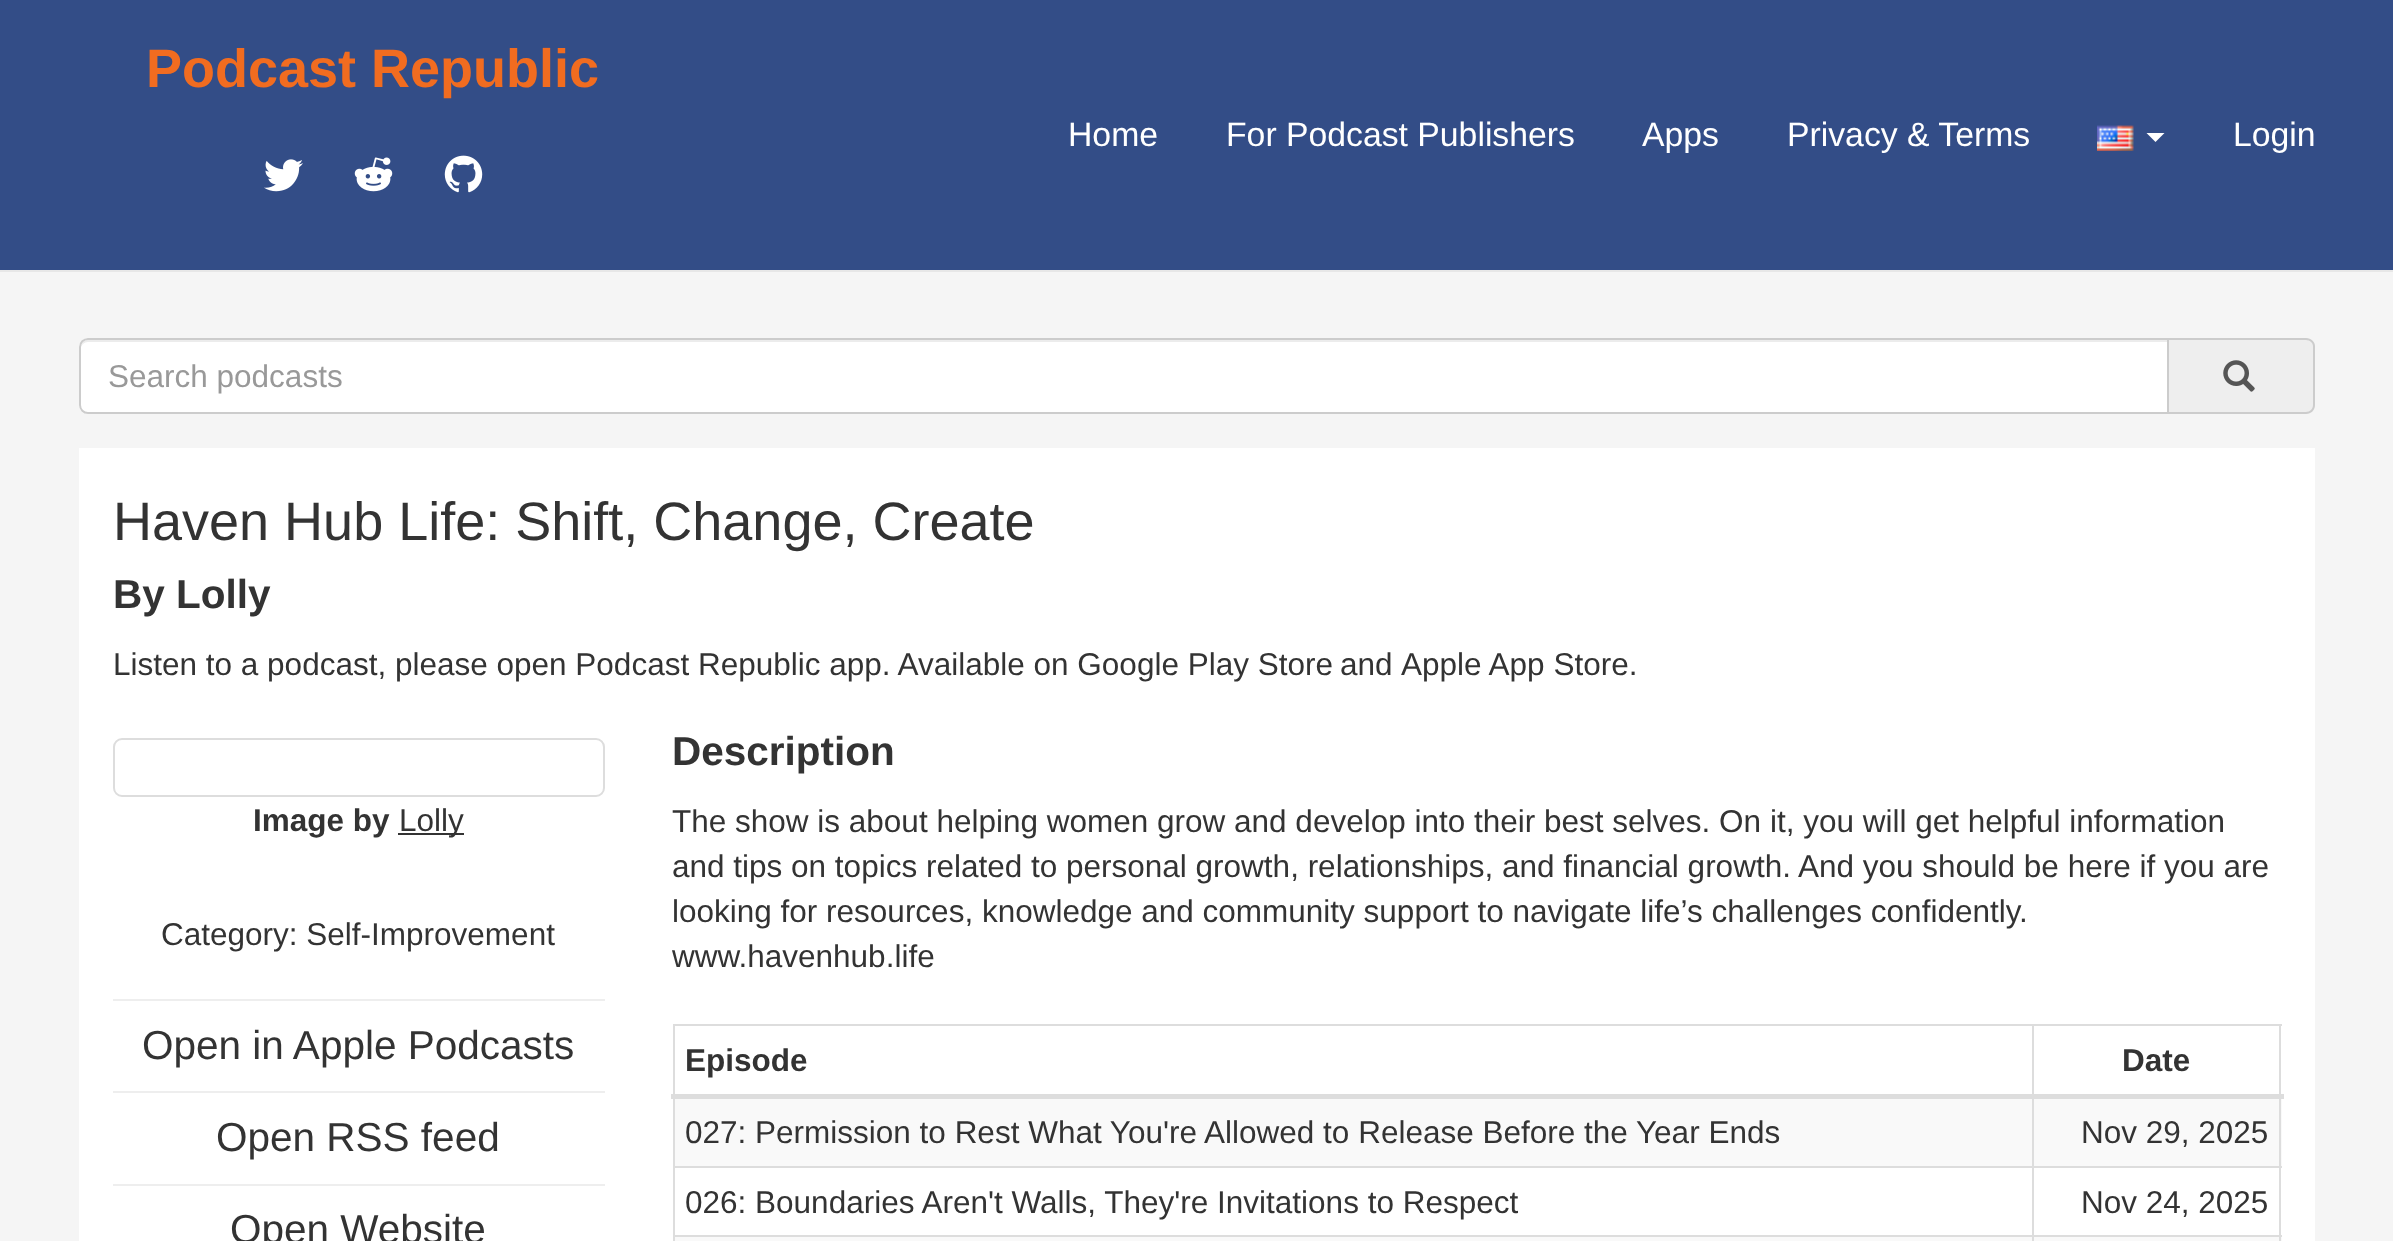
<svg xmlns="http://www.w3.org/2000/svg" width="2393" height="1241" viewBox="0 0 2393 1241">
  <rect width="100%" height="100%" fill="rgb(245,245,245)"/>
  <rect x="0" y="0" width="2393" height="270" fill="rgb(51,77,135)"/>
  <rect x="0" y="270" width="2393" height="2" fill="rgb(231,231,231)"/>
  <text x="146" y="87" font-family="Liberation Sans" font-size="54" font-weight="bold" fill="rgb(241,108,32)">Podcast Republic</text>
  <image x="264" y="159" width="39" height="33" href="pic1.png"/>
  <image x="354" y="157" width="39" height="35" href="pic2.png"/>
  <image x="444" y="155" width="39" height="38" href="pic3.png"/>
  <g font-family="Liberation Sans" font-size="33.75" fill="rgb(255,255,255)">
    <text x="1068" y="146">Home</text>
    <text x="1226" y="146">For Podcast Publishers</text>
    <text x="1642" y="146">Apps</text>
    <text x="1787" y="146">Privacy &amp; Terms</text>
  </g>
  <image x="2097" y="125" width="37" height="26" href="pic4.png"/>
  <path d="M2146.5 133H2164.5L2155.5 142Z" fill="rgb(255,255,255)"/>
  <text x="2233" y="146" font-family="Liberation Sans" font-size="33.75" fill="rgb(255,255,255)">Login</text>
  <path d="M88 338H2169V414H88C83 414 79 410 79 405V347C79 342 83 338 88 338Z" fill="rgb(255,255,255)"/>
  <path d="M88 342H2167V340H88C83 340 81 345 81 349C81 345 84 342 88 342Z" fill="rgb(236,236,236)"/>
  <path d="M88 339H2168V413H88C83.5 413 80 409.5 80 405V347C80 342.5 83.5 339 88 339Z" fill="none" stroke="rgb(204,204,204)" stroke-width="2"/>
  <text x="108" y="387" font-family="Liberation Sans" font-size="31.5" fill="rgb(153,153,153)">Search podcasts</text>
  <path d="M2169 338H2306C2311 338 2315 342 2315 347V405C2315 410 2311 414 2306 414H2169Z" fill="rgb(238,238,238)"/>
  <path d="M2169 338H2306C2311 338 2315 342 2315 346V405C2315 410 2311 414 2306 414H2169ZM2169 340H2306C2310 340 2313 343 2313 346V405C2313 409 2310 412 2306 412H2169Z" fill="rgb(204,204,204)" fill-rule="evenodd"/>
  <image x="2223" y="360" width="32" height="32" href="pic5.png"/>
  <rect x="79" y="448" width="2236" height="793" fill="rgb(255,255,255)"/>
  <text x="113" y="540" font-family="Liberation Sans" font-size="54" fill="rgb(51,51,51)">Haven Hub Life: Shift, Change, Create</text>
  <text x="113" y="608" font-family="Liberation Sans" font-size="40.5" font-weight="bold" fill="rgb(51,51,51)">By Lolly</text>
  <g font-family="Liberation Sans" font-size="31.5" fill="rgb(51,51,51)">
    <text x="113" y="675">Listen to a podcast, please open Podcast Republic app. Available on Google Play Store</text>
    <text x="1340" y="675">and</text>
    <text x="1401" y="675">Apple App Store.</text>
  </g>
  <rect x="114" y="739" width="490" height="57" rx="8" fill="none" stroke="rgb(221,221,221)" stroke-width="2"/>
  <text x="253" y="831" font-family="Liberation Sans" font-size="31.5" font-weight="bold" fill="rgb(51,51,51)">Image by</text>
  <rect x="398" y="833" width="66" height="2" fill="rgb(51,51,51)"/>
  <g font-family="Liberation Sans" font-size="31.5" fill="rgb(51,51,51)">
    <text x="399" y="831">Lolly</text>
    <text x="161" y="945">Category: Self-Improvement</text>
  </g>
  <rect x="113" y="999" width="492" height="2" fill="rgb(238,238,238)"/>
  <text x="142" y="1059" font-family="Liberation Sans" font-size="40.5" fill="rgb(51,51,51)">Open in Apple Podcasts</text>
  <rect x="113" y="1091" width="492" height="2" fill="rgb(238,238,238)"/>
  <text x="216" y="1151" font-family="Liberation Sans" font-size="40.5" fill="rgb(51,51,51)">Open RSS feed</text>
  <rect x="113" y="1184" width="492" height="2" fill="rgb(238,238,238)"/>
  <text x="230" y="1243" font-family="Liberation Sans" font-size="40.5" fill="rgb(51,51,51)">Open Website</text>
  <text x="672" y="765" font-family="Liberation Sans" font-size="40.5" font-weight="bold" fill="rgb(51,51,51)">Description</text>
  <g font-family="Liberation Sans" font-size="31.5" fill="rgb(51,51,51)">
    <text>
      <tspan x="672" y="832">The show is about helping women grow and develop into their best selves. On it, you will get helpful information</tspan>
      <tspan x="672" y="877">and tips on topics related to personal growth, relationships, and financial growth. And you should be here if you are</tspan>
      <tspan x="672" y="922">looking for resources, knowledge and community support to navigate life’s challenges confidently.</tspan>
      <tspan x="672" y="967">www.havenhub.life</tspan>
    </text>
  </g>
  <rect x="673" y="1024" width="1609" height="2" fill="rgb(221,221,221)"/>
  <rect x="675" y="1099" width="1607" height="67" fill="rgb(249,249,249)"/>
  <rect x="673" y="1237" width="1609" height="4" fill="rgb(249,249,249)"/>
  <rect x="2279" y="1024" width="2" height="217" fill="rgb(221,221,221)"/>
  <rect x="673" y="1024" width="2" height="217" fill="rgb(221,221,221)"/>
  <text x="685" y="1071" font-family="Liberation Sans" font-size="31.5" font-weight="bold" fill="rgb(51,51,51)">Episode</text>
  <rect x="2032" y="1166" width="250" height="2" fill="rgb(221,221,221)"/>
  <rect x="2032" y="1235" width="250" height="2" fill="rgb(221,221,221)"/>
  <rect x="2032" y="1235" width="2" height="6" fill="rgb(221,221,221)"/>
  <rect x="673" y="1235" width="1361" height="2" fill="rgb(221,221,221)"/>
  <rect x="2032" y="1166" width="2" height="72" fill="rgb(221,221,221)"/>
  <rect x="673" y="1166" width="1361" height="2" fill="rgb(221,221,221)"/>
  <rect x="2032" y="1024" width="2" height="144" fill="rgb(221,221,221)"/>
  <rect x="671" y="1094" width="1613" height="5" fill="rgb(221,221,221)"/>
  <text x="2122" y="1071" font-family="Liberation Sans" font-size="31.5" font-weight="bold" fill="rgb(51,51,51)">Date</text>
  <g font-family="Liberation Sans" font-size="31.5" fill="rgb(51,51,51)">
    <text x="685" y="1143">027: Permission to Rest What You're Allowed to Release Before the Year Ends</text>
    <text x="2081" y="1143">Nov 29, 2025</text>
    <text x="685" y="1213">026: Boundaries Aren't Walls, They're Invitations to Respect</text>
    <text x="2081" y="1213">Nov 24, 2025</text>
  </g>
</svg>
